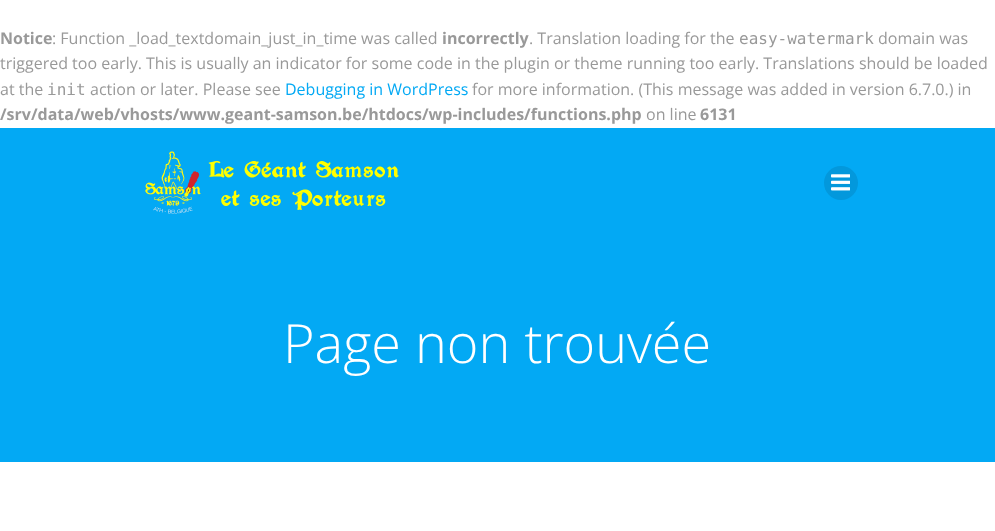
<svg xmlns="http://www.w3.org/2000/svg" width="995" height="531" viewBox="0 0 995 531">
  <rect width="100%" height="100%" fill="rgb(255,255,255)"/>
  <text x="0" y="44" font-family="Open Sans" font-size="16" font-weight="bold" fill="rgb(153,153,153)">Notice</text>
  <text x="52" y="44" font-family="Open Sans" font-size="16" fill="rgb(153,153,153)">: Function _load_textdomain_just_in_time was called</text>
  <text x="442" y="44" font-family="Open Sans" font-size="16" font-weight="bold" fill="rgb(153,153,153)">incorrectly</text>
  <text x="529" y="44" font-family="Open Sans" font-size="16" fill="rgb(153,153,153)">. Translation loading for the</text>
  <text x="739" y="44" font-family="DejaVu Sans Mono" font-size="16" fill="rgb(153,153,153)">easy-watermark</text>
  <g font-family="Open Sans" font-size="16" fill="rgb(153,153,153)">
    <text x="878" y="44">domain was</text>
    <text>
      <tspan x="0" y="69">triggered too early. This is usually an indicator for some code in the plugin or theme running too early. Translations should be loaded</tspan>
      <tspan x="0" y="95">at the</tspan>
    </text>
  </g>
  <text x="47" y="95" font-family="DejaVu Sans Mono" font-size="16" fill="rgb(153,153,153)">init</text>
  <text x="90" y="95" font-family="Open Sans" font-size="16" fill="rgb(153,153,153)">action or later. Please see</text>
  <text x="285" y="95" font-family="Open Sans" font-size="16" fill="rgb(3,169,244)">Debugging in WordPress</text>
  <text x="472" y="95" font-family="Open Sans" font-size="16" fill="rgb(153,153,153)">for more information. (This message was added in version 6.7.0.) in</text>
  <text x="0" y="120" font-family="Open Sans" font-size="16" font-weight="bold" fill="rgb(153,153,153)">/srv/data/web/vhosts/www.geant-samson.be/htdocs/wp-includes/functions.php</text>
  <text x="646" y="120" font-family="Open Sans" font-size="16" fill="rgb(153,153,153)">on line</text>
  <text x="700" y="120" font-family="Open Sans" font-size="16" font-weight="bold" fill="rgb(153,153,153)">6131</text>
  <rect x="0" y="128" width="995" height="334" fill="rgb(3,169,244)"/>
  <image x="145" y="151" width="254" height="63" href="pic1.png"/>
  <circle cx="841" cy="183" r="17" fill="rgb(3,152,220)"/>
  <image x="831" y="174" width="19" height="17" href="pic2.png"/>
  <text x="283" y="363" font-family="Open Sans" font-size="54" font-weight="300" fill="rgb(255,255,255)">Page non trouvée</text>
</svg>
